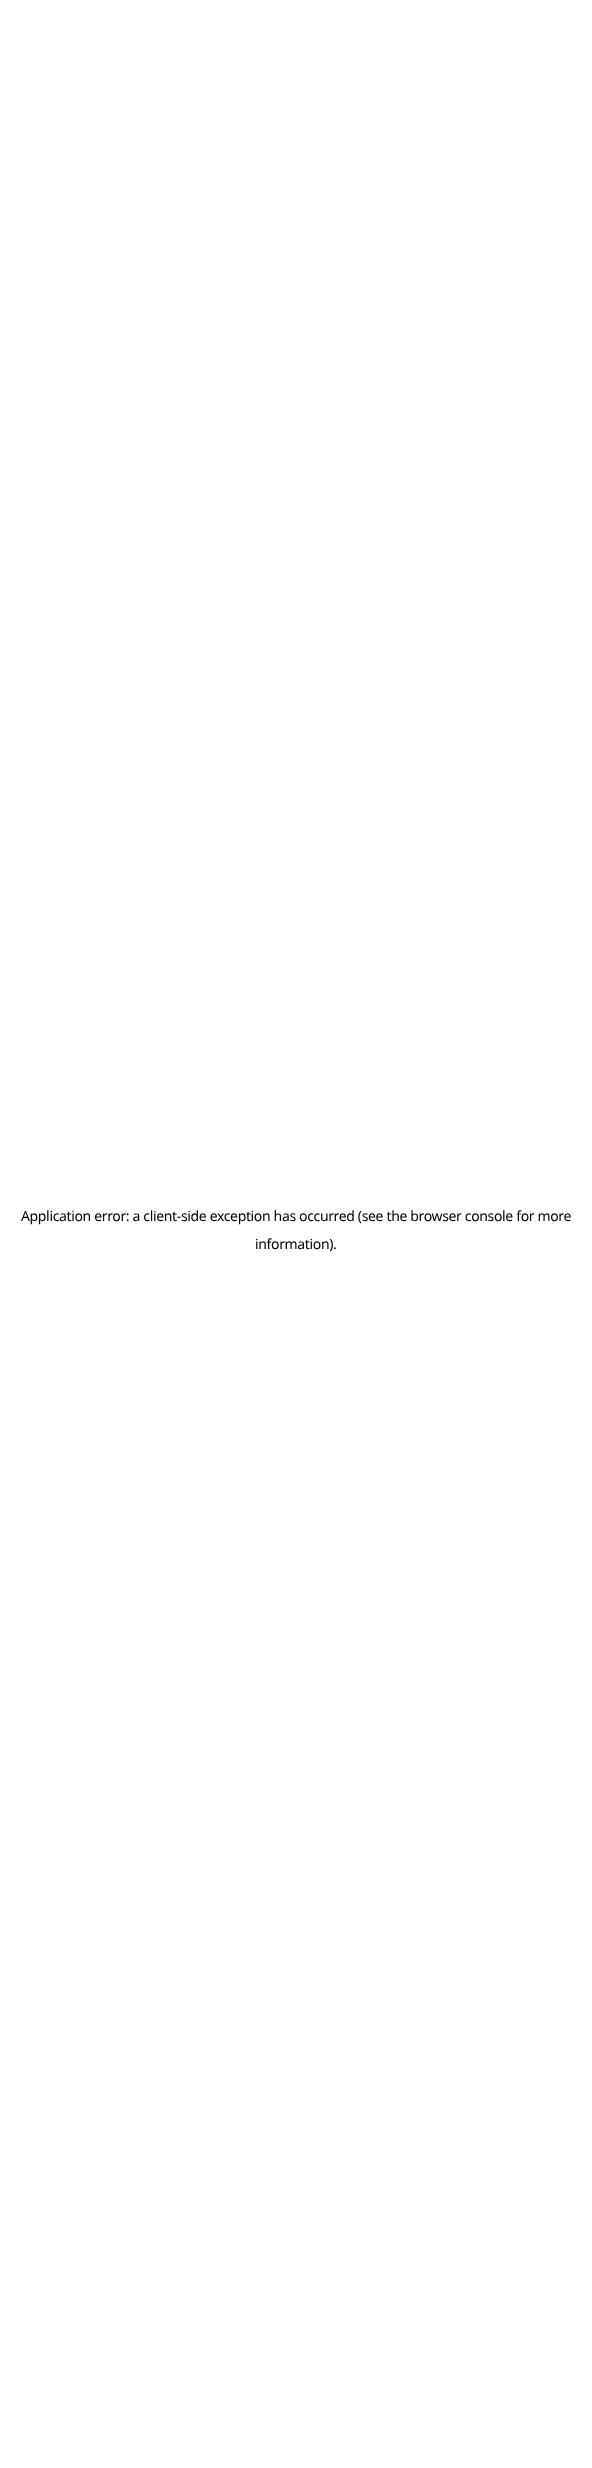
<svg xmlns="http://www.w3.org/2000/svg" width="592" height="2468" viewBox="0 0 592 2468">
  <rect width="100%" height="100%" fill="rgb(255,255,255)"/>
  <g font-family="Noto Sans" font-size="14" letter-spacing="-0.35" fill="rgb(0,0,0)">
    <text x="21" y="1221">Application error: a client-side exception has occurred (see the browser console for more</text>
    <text x="255" y="1249">information).</text>
  </g>
</svg>
